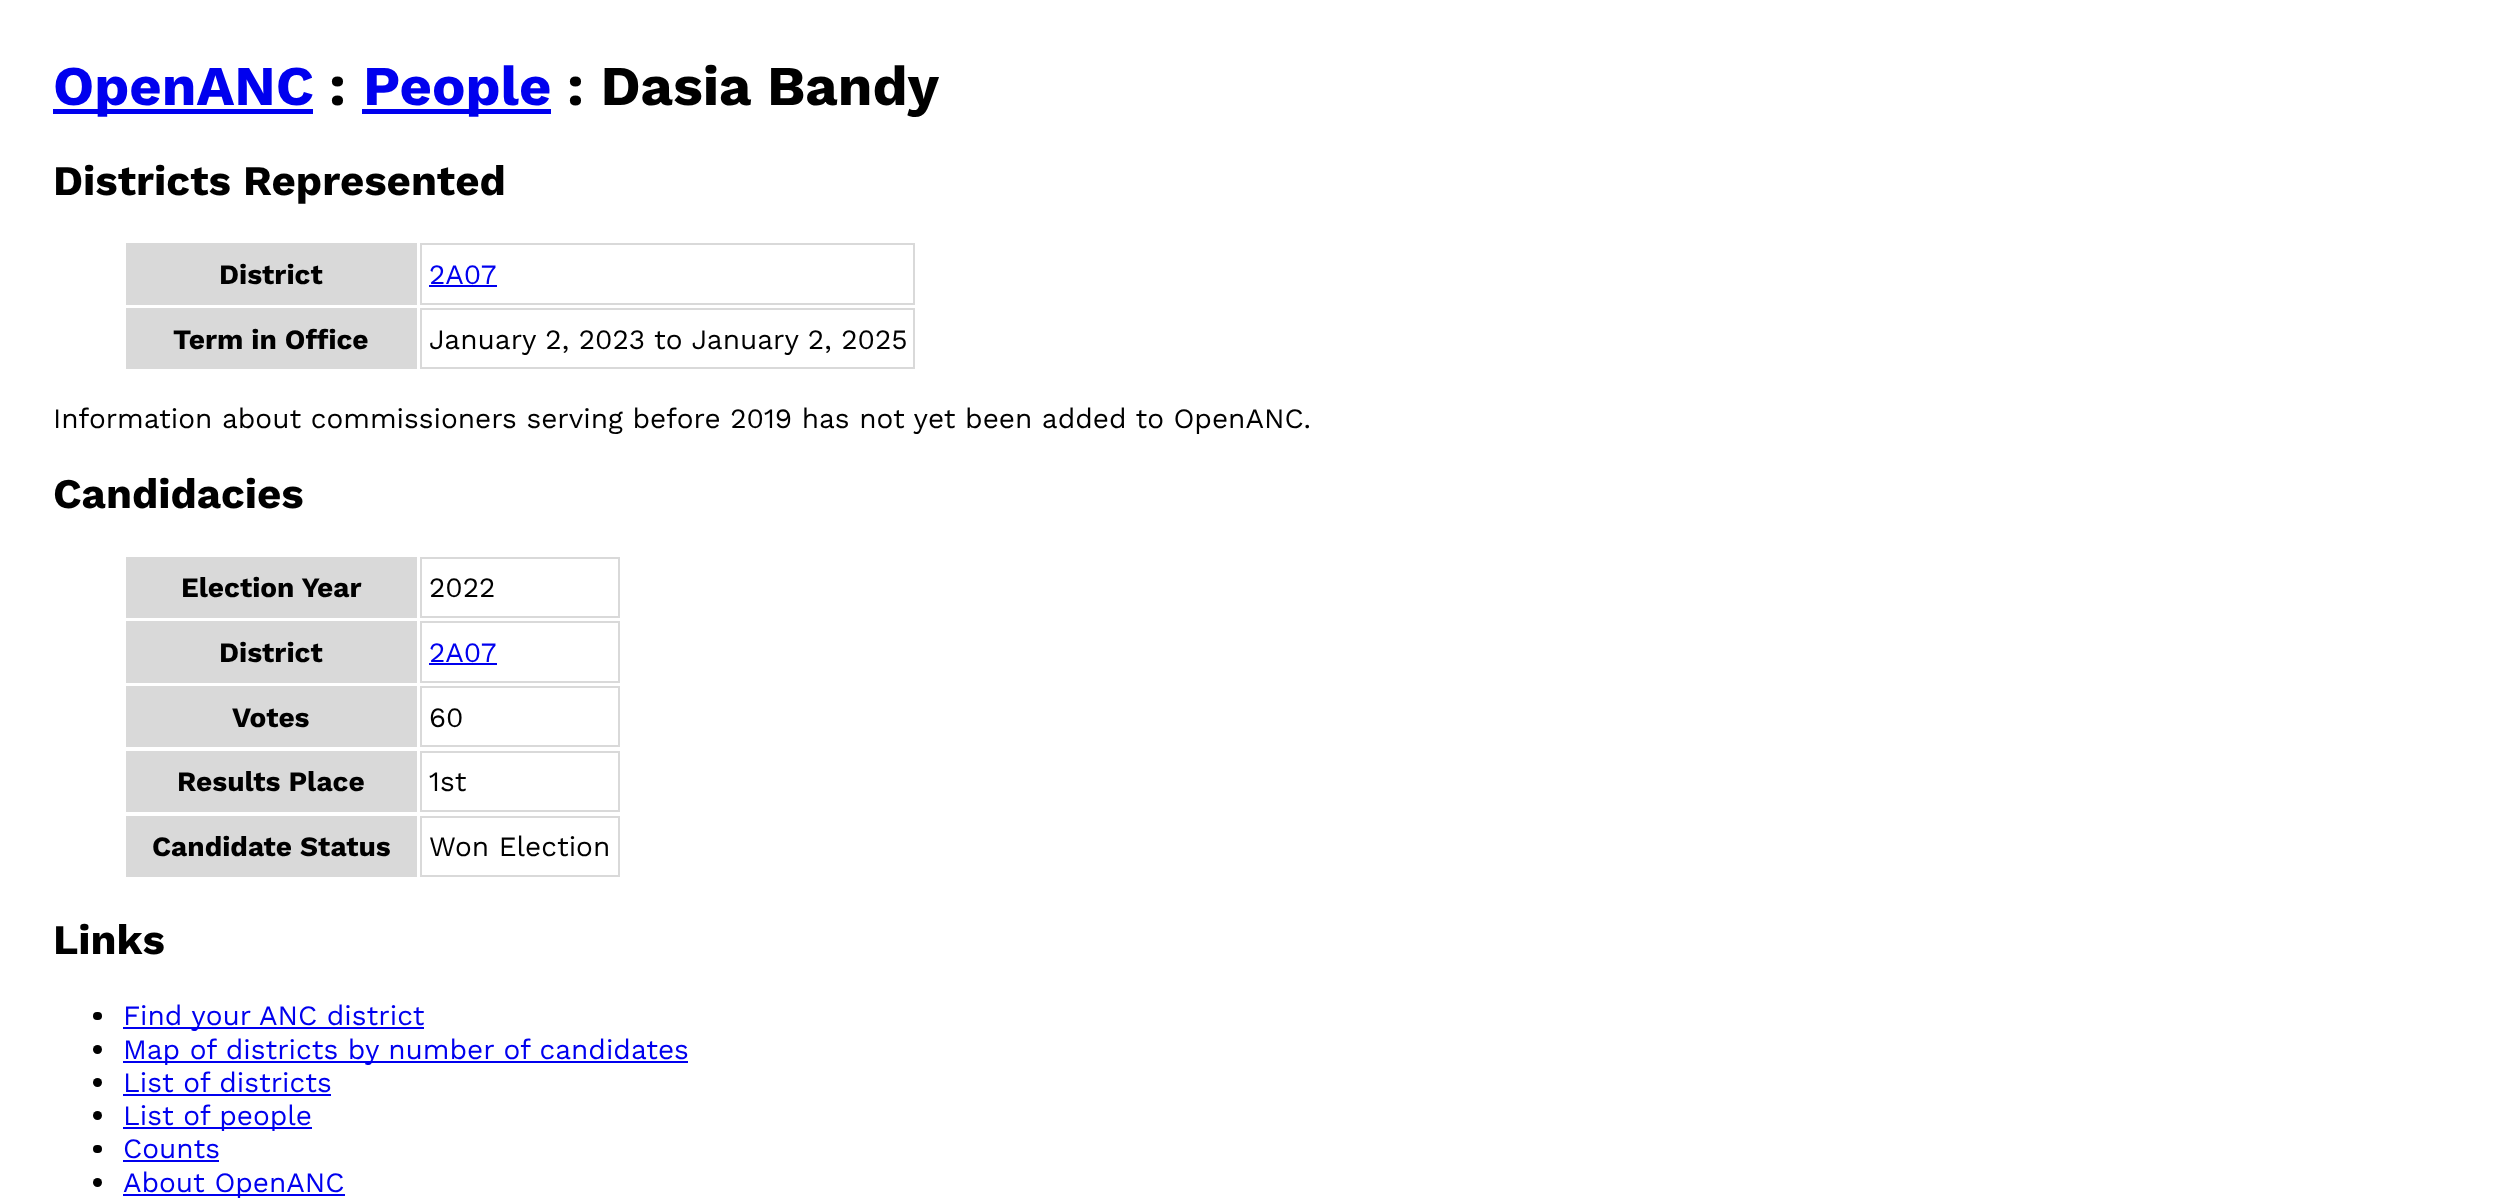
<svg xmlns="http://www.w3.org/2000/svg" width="2499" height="1202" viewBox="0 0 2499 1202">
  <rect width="100%" height="100%" fill="rgb(255,255,255)"/>
  <rect x="53" y="109" width="260" height="5" fill="rgb(0,0,238)"/>
  <text x="53" y="105" font-family="Work Sans" font-size="56" font-weight="bold" fill="rgb(0,0,238)">OpenANC</text>
  <text x="329" y="105" font-family="Work Sans" font-size="56" font-weight="bold" fill="rgb(0,0,0)">:</text>
  <rect x="362" y="109" width="189" height="5" fill="rgb(0,0,238)"/>
  <text x="363" y="105" font-family="Work Sans" font-size="56" font-weight="bold" fill="rgb(0,0,238)">People</text>
  <text x="567" y="105" font-family="Work Sans" font-size="56" font-weight="bold" fill="rgb(0,0,0)">: Dasia Bandy</text>
  <text x="53" y="195" font-family="Work Sans" font-size="42" font-weight="bold" fill="rgb(0,0,0)">Districts Represented</text>
  <rect x="126" y="243" width="291" height="62" fill="rgb(217,217,217)"/>
  <text x="219" y="284" font-family="Work Sans" font-size="28" font-weight="bold" fill="rgb(0,0,0)">District</text>
  <rect x="421" y="244" width="493" height="60" fill="none" stroke="rgb(217,217,217)" stroke-width="2"/>
  <text x="429" y="284" font-family="Work Sans" font-size="28" fill="rgb(0,0,238)">2A07</text>
  <rect x="429" y="285" width="68" height="2" fill="rgb(0,0,238)"/>
  <rect x="126" y="308" width="291" height="61" fill="rgb(217,217,217)"/>
  <text x="173" y="349" font-family="Work Sans" font-size="28" font-weight="bold" fill="rgb(0,0,0)">Term in Office</text>
  <rect x="421" y="309" width="493" height="59" fill="none" stroke="rgb(217,217,217)" stroke-width="2"/>
  <g font-family="Work Sans" font-size="28" fill="rgb(0,0,0)">
    <text x="429" y="349">January 2, 2023 to January 2, 2025</text>
    <text x="53" y="428">Information about commissioners serving before 2019 has not yet been added to OpenANC.</text>
  </g>
  <text x="53" y="508" font-family="Work Sans" font-size="42" font-weight="bold" fill="rgb(0,0,0)">Candidacies</text>
  <rect x="126" y="557" width="291" height="61" fill="rgb(217,217,217)"/>
  <text x="181" y="597" font-family="Work Sans" font-size="28" font-weight="bold" fill="rgb(0,0,0)">Election Year</text>
  <rect x="421" y="558" width="198" height="59" fill="none" stroke="rgb(217,217,217)" stroke-width="2"/>
  <text x="429" y="597" font-family="Work Sans" font-size="28" fill="rgb(0,0,0)">2022</text>
  <rect x="126" y="621" width="291" height="62" fill="rgb(217,217,217)"/>
  <text x="219" y="662" font-family="Work Sans" font-size="28" font-weight="bold" fill="rgb(0,0,0)">District</text>
  <rect x="421" y="622" width="198" height="60" fill="none" stroke="rgb(217,217,217)" stroke-width="2"/>
  <text x="429" y="662" font-family="Work Sans" font-size="28" fill="rgb(0,0,238)">2A07</text>
  <rect x="429" y="663" width="68" height="2" fill="rgb(0,0,238)"/>
  <rect x="126" y="686" width="291" height="61" fill="rgb(217,217,217)"/>
  <text x="232" y="727" font-family="Work Sans" font-size="28" font-weight="bold" fill="rgb(0,0,0)">Votes</text>
  <rect x="421" y="687" width="198" height="59" fill="none" stroke="rgb(217,217,217)" stroke-width="2"/>
  <text x="429" y="727" font-family="Work Sans" font-size="28" fill="rgb(0,0,0)">60</text>
  <rect x="126" y="751" width="291" height="61" fill="rgb(217,217,217)"/>
  <text x="177" y="791" font-family="Work Sans" font-size="28" font-weight="bold" fill="rgb(0,0,0)">Results Place</text>
  <rect x="421" y="752" width="198" height="59" fill="none" stroke="rgb(217,217,217)" stroke-width="2"/>
  <text x="429" y="791" font-family="Work Sans" font-size="28" fill="rgb(0,0,0)">1st</text>
  <rect x="126" y="816" width="291" height="61" fill="rgb(217,217,217)"/>
  <text x="152" y="856" font-family="Work Sans" font-size="28" font-weight="bold" fill="rgb(0,0,0)">Candidate Status</text>
  <rect x="421" y="817" width="198" height="59" fill="none" stroke="rgb(217,217,217)" stroke-width="2"/>
  <text x="429" y="856" font-family="Work Sans" font-size="28" fill="rgb(0,0,0)">Won Election</text>
  <text x="53" y="954" font-family="Work Sans" font-size="42" font-weight="bold" fill="rgb(0,0,0)">Links</text>
  <rect x="93" y="1012" width="9" height="8" rx="4" fill="rgb(0,0,0)"/>
  <rect x="123" y="1027" width="301" height="2" fill="rgb(0,0,238)"/>
  <text x="123" y="1025" font-family="Work Sans" font-size="28" fill="rgb(0,0,238)">Find your ANC district</text>
  <circle cx="97.5" cy="1049.5" r="4.5" fill="rgb(0,0,0)"/>
  <rect x="123" y="1061" width="565" height="2" fill="rgb(0,0,238)"/>
  <text x="123" y="1059" font-family="Work Sans" font-size="28" fill="rgb(0,0,238)">Map of districts by number of candidates</text>
  <circle cx="97.5" cy="1082.5" r="4.5" fill="rgb(0,0,0)"/>
  <text x="123" y="1092" font-family="Work Sans" font-size="28" fill="rgb(0,0,238)">List of districts</text>
  <rect x="123" y="1094" width="208" height="2" fill="rgb(0,0,238)"/>
  <circle cx="97.5" cy="1115.5" r="4.5" fill="rgb(0,0,0)"/>
  <rect x="123" y="1127" width="189" height="2" fill="rgb(0,0,238)"/>
  <text x="123" y="1125" font-family="Work Sans" font-size="28" fill="rgb(0,0,238)">List of people</text>
  <rect x="93" y="1145" width="9" height="8" rx="4" fill="rgb(0,0,0)"/>
  <text x="123" y="1158" font-family="Work Sans" font-size="28" fill="rgb(0,0,238)">Counts</text>
  <rect x="123" y="1160" width="96" height="2" fill="rgb(0,0,238)"/>
  <circle cx="97.5" cy="1182.5" r="4.5" fill="rgb(0,0,0)"/>
  <rect x="123" y="1194" width="222" height="2" fill="rgb(0,0,238)"/>
  <text x="123" y="1192" font-family="Work Sans" font-size="28" fill="rgb(0,0,238)">About OpenANC</text>
</svg>
